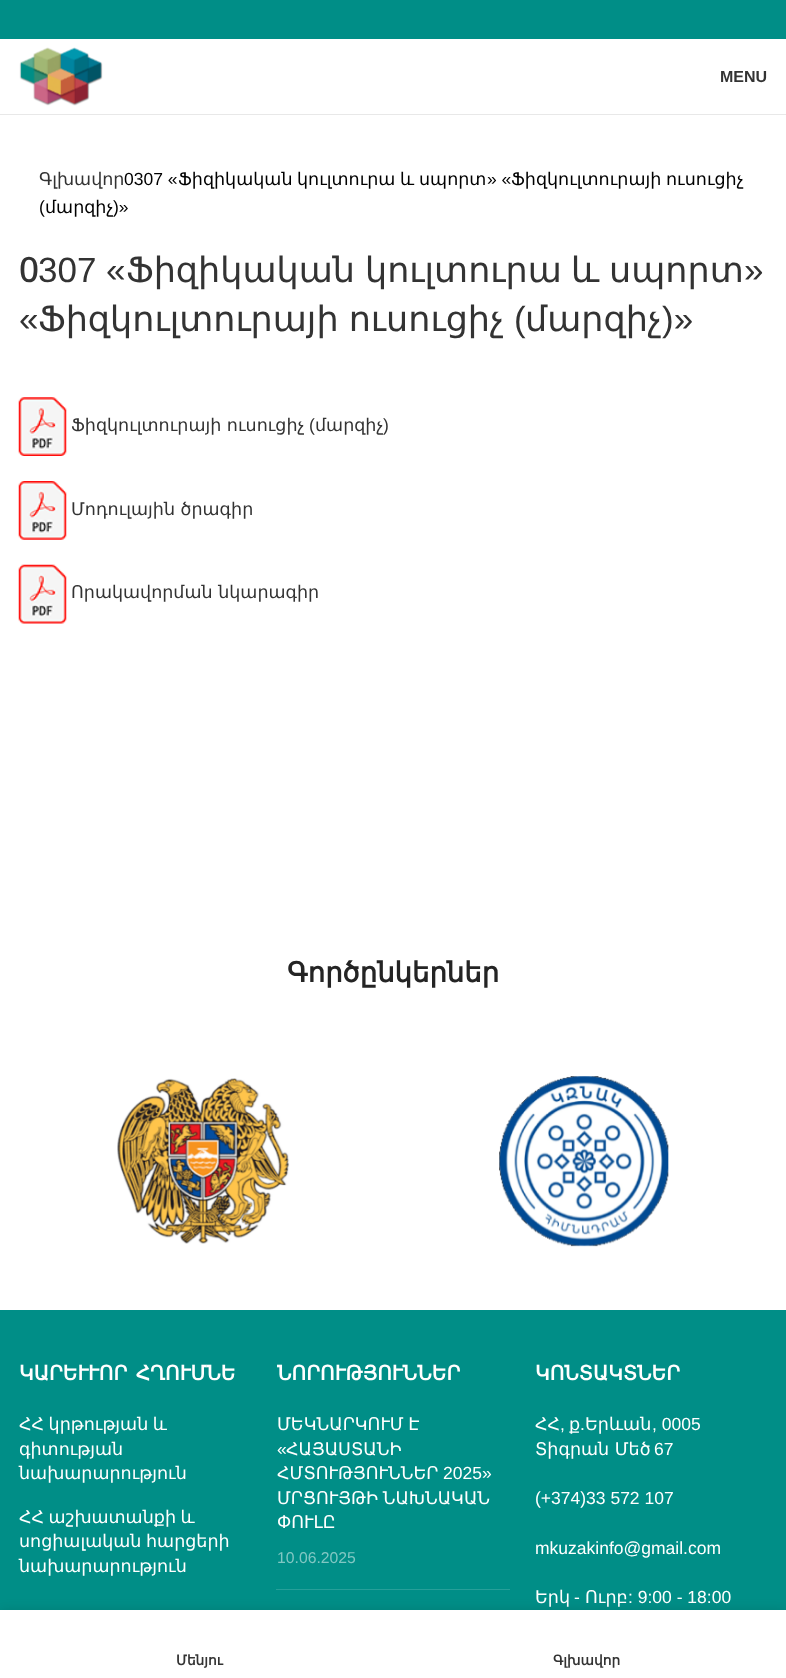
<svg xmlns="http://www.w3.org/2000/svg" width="786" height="1678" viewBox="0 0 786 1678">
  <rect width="100%" height="100%" fill="rgb(255,255,255)"/>
  <rect x="0" y="0" width="786" height="39" fill="rgb(0,142,135)"/>
  <rect x="0" y="114" width="786" height="1" fill="rgb(232,232,232)"/>
  <image x="19" y="47" width="84" height="59" href="pic1.png"/>
  <text x="720" y="82" font-family="Liberation Sans" font-size="16" font-weight="bold" fill="rgb(51,51,51)">MENU</text>
  <text x="39" y="185" font-family="DejaVu Sans" font-size="17.5" fill="rgb(51,51,51)">Գլխավոր</text>
  <text x="124" y="185" font-family="Liberation Sans" font-size="17.5" fill="rgb(0,0,0)">0307 «</text>
  <g font-family="DejaVu Sans" font-size="17.5" fill="rgb(0,0,0)">
    <text x="178" y="185">Ֆիզիկական</text>
    <text x="297" y="185">կուլտուրա</text>
    <text x="400" y="185">և</text>
    <text x="419" y="185">սպորտ</text>
  </g>
  <text x="487" y="185" font-family="Liberation Sans" font-size="17.5" fill="rgb(0,0,0)">» «</text>
  <g font-family="DejaVu Sans" font-size="17.5" fill="rgb(0,0,0)">
    <text x="511" y="185">Ֆիզկուլտուրայի</text>
    <text x="666" y="185">ուսուցիչ</text>
  </g>
  <text x="39" y="213" font-family="Liberation Sans" font-size="17.5" fill="rgb(0,0,0)">(</text>
  <text x="45" y="213" font-family="DejaVu Sans" font-size="17.5" fill="rgb(0,0,0)">մարզիչ</text>
  <text x="113" y="213" font-family="Liberation Sans" font-size="17.5" fill="rgb(0,0,0)">)»</text>
  <text x="19" y="282" font-family="Noto Sans" font-size="35" font-weight="500" fill="rgb(51,51,51)">0</text>
  <text x="38" y="282" font-family="Liberation Sans" font-size="35" fill="rgb(51,51,51)">307 «</text>
  <g font-family="DejaVu Sans" font-size="35" fill="rgb(51,51,51)">
    <text x="126" y="282">Ֆիզիկական</text>
    <text x="365" y="282">կուլտուրա</text>
    <text x="571" y="282">և</text>
    <text x="609" y="282">սպորտ</text>
  </g>
  <g font-family="Liberation Sans" font-size="35" fill="rgb(51,51,51)">
    <text x="744" y="282">»</text>
    <text x="19" y="331">«</text>
  </g>
  <text x="38" y="331" word-spacing="-1" font-family="DejaVu Sans" font-size="35" fill="rgb(51,51,51)">Ֆիզկուլտուրայի ուսուցիչ</text>
  <text x="514" y="331" font-family="Liberation Sans" font-size="35" fill="rgb(51,51,51)">(</text>
  <text x="525" y="331" font-family="DejaVu Sans" font-size="35" fill="rgb(51,51,51)">մարզիչ</text>
  <text x="662" y="331" font-family="Liberation Sans" font-size="35" fill="rgb(51,51,51)">)»</text>
  <image x="18" y="397" width="49" height="59" href="pic2.png"/>
  <text x="71" y="431" font-family="DejaVu Sans" font-size="17.5" fill="rgb(51,51,51)">Ֆիզկուլտուրայի ուսուցիչ</text>
  <text x="309" y="431" font-family="Liberation Sans" font-size="17.5" fill="rgb(51,51,51)">(</text>
  <text x="315" y="431" font-family="DejaVu Sans" font-size="17.5" fill="rgb(51,51,51)">մարզիչ</text>
  <text x="383" y="431" font-family="Liberation Sans" font-size="17.5" fill="rgb(51,51,51)">)</text>
  <image x="18" y="481" width="49" height="59" href="pic3.png"/>
  <text x="71" y="515" font-family="DejaVu Sans" font-size="17.5" fill="rgb(51,51,51)">Մոդուլային ծրագիր</text>
  <image x="18" y="564" width="49" height="60" href="pic4.png"/>
  <text x="71" y="598" font-family="DejaVu Sans" font-size="17.5" fill="rgb(51,51,51)">Որակավորման նկարագիր</text>
  <text x="287" y="982" font-family="DejaVu Sans" font-size="27.5" font-weight="bold" fill="rgb(36,36,36)">Գործընկերներ</text>
  <image x="117" y="1078" width="173" height="166" href="pic5.png"/>
  <image x="499" y="1076" width="170" height="171" href="pic6.png"/>
  <rect x="0" y="1310" width="786" height="300" fill="rgb(0,142,135)"/>
  <g font-family="DejaVu Sans" font-size="20" font-weight="bold" fill="rgb(255,255,255)">
    <text x="19" y="1380">ԿԱՐԵՒ</text>
    <text x="88" y="1380" word-spacing="2">ՒՈՐ ՀՂՈՒՄՆԵ</text>
  </g>
  <g font-family="DejaVu Sans" font-size="17.5" fill="rgb(255,255,255)">
    <text>
      <tspan x="19" y="1430" word-spacing="-1">ՀՀ կրթության և</tspan>
      <tspan x="19" y="1455">գիտության</tspan>
      <tspan x="19" y="1479">նախարարություն</tspan>
    </text>
    <text>
      <tspan x="19" y="1523" word-spacing="-1">ՀՀ աշխատանքի և</tspan>
      <tspan x="19" y="1547" word-spacing="-1">սոցիալական հարցերի</tspan>
      <tspan x="19" y="1572">նախարարություն</tspan>
    </text>
  </g>
  <text x="277" y="1380" font-family="DejaVu Sans" font-size="20" font-weight="bold" fill="rgb(255,255,255)">ՆՈՐՈՒԹՅՈՒՆՆԵՐ</text>
  <rect x="276" y="1589" width="234" height="1" fill="rgb(38,159,153)"/>
  <text x="277" y="1430" word-spacing="-1" font-family="DejaVu Sans" font-size="17.5" fill="rgb(255,255,255)">ՄԵԿՆԱՐԿՈՒՄ Է</text>
  <text x="277" y="1455" font-family="Liberation Sans" font-size="17.5" fill="rgb(255,255,255)">«</text>
  <g font-family="DejaVu Sans" font-size="17.5" fill="rgb(255,255,255)">
    <text x="286" y="1455">ՀԱՅԱՍՏԱՆԻ</text>
    <text x="277" y="1479">ՀՄՏՈՒԹՅՈՒՆՆԵՐ</text>
  </g>
  <text x="443" y="1479" font-family="Liberation Sans" font-size="17.5" fill="rgb(255,255,255)">2025»</text>
  <g font-family="DejaVu Sans" font-size="17.5" fill="rgb(255,255,255)">
    <text>
      <tspan x="277" y="1504" word-spacing="-1">ՄՐՑՈՒՅԹԻ ՆԱԽՆԱԿԱՆ</tspan>
      <tspan x="277" y="1528">ՓՈՒԼԸ</tspan>
    </text>
  </g>
  <text x="277" y="1563" font-family="Liberation Sans" font-size="15.75" fill="rgb(128,199,195)">10.06.2025</text>
  <text x="535" y="1380" font-family="DejaVu Sans" font-size="20" font-weight="bold" fill="rgb(255,255,255)">ԿՈՆՏԱԿՏՆԵՐ</text>
  <text x="535" y="1430" font-family="DejaVu Sans" font-size="17.5" fill="rgb(255,255,255)">ՀՀ</text>
  <text x="560" y="1430" font-family="Liberation Sans" font-size="17.5" fill="rgb(255,255,255)">,</text>
  <text x="569" y="1430" font-family="DejaVu Sans" font-size="17.5" fill="rgb(255,255,255)">ք</text>
  <text x="580" y="1430" font-family="Liberation Sans" font-size="17.5" fill="rgb(255,255,255)">.</text>
  <text x="585" y="1430" font-family="DejaVu Sans" font-size="17.5" fill="rgb(255,255,255)">Երևան</text>
  <text x="652" y="1430" font-family="Liberation Sans" font-size="17.5" fill="rgb(255,255,255)">, 0005</text>
  <text x="535" y="1455" font-family="DejaVu Sans" font-size="17.5" fill="rgb(255,255,255)">Տիգրան Մեծ</text>
  <g font-family="Liberation Sans" font-size="17.5" fill="rgb(255,255,255)">
    <text x="654" y="1455">67</text>
    <text x="535" y="1504">(+374)33 572 107</text>
    <text x="535" y="1554">mkuzakinfo@gmail.com</text>
  </g>
  <text x="535" y="1603" font-family="DejaVu Sans" font-size="17.5" fill="rgb(255,255,255)">Երկ</text>
  <text x="574" y="1603" font-family="Liberation Sans" font-size="17.5" fill="rgb(255,255,255)">-</text>
  <text x="585" y="1603" font-family="DejaVu Sans" font-size="17.5" fill="rgb(255,255,255)">Ուրբ</text>
  <text x="628" y="1603" font-family="Liberation Sans" font-size="17.5" fill="rgb(255,255,255)">: 9:00 - 18:00</text>
  <rect x="0" y="1610" width="786" height="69" fill="rgba(0,0,0,0.12)" filter="blur(5.5px)"/>
  <rect x="0" y="1610" width="786" height="68" fill="rgb(255,255,255)"/>
  <g font-family="DejaVu Sans" font-size="13.75" font-weight="bold" fill="rgb(51,51,51)">
    <text x="176" y="1665">Մենյու</text>
    <text x="553" y="1665">Գլխավոր</text>
  </g>
</svg>
